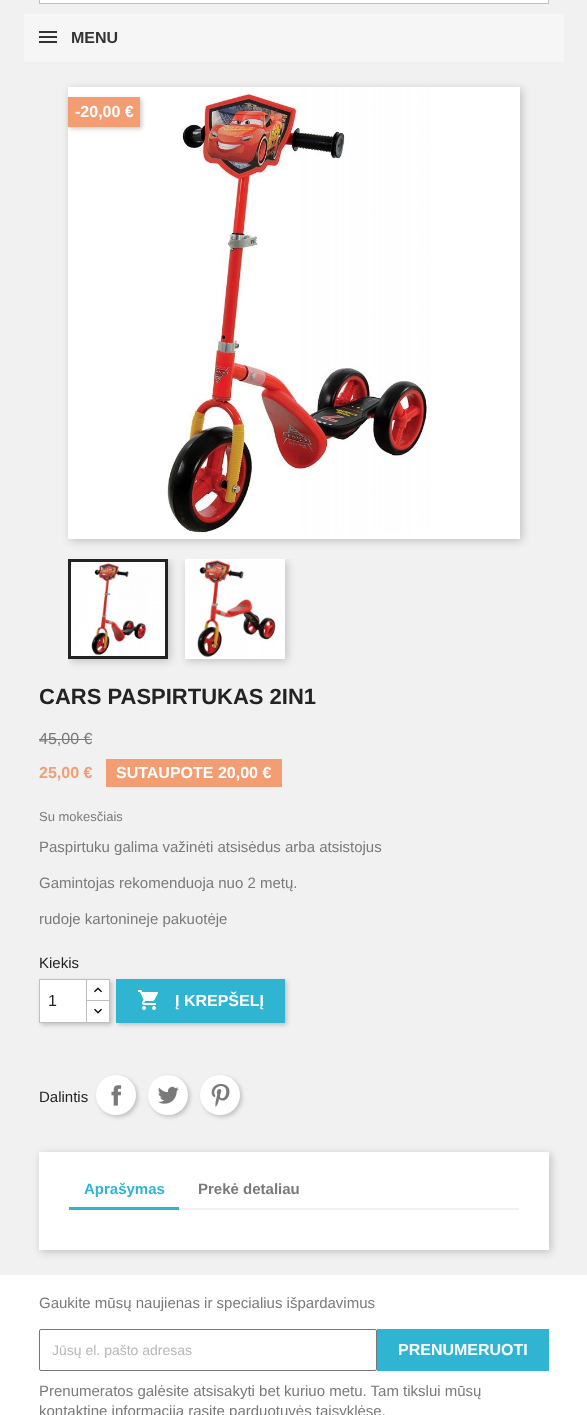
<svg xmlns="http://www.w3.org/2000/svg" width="587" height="1415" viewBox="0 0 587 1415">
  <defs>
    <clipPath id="clip1"><rect x="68" y="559" width="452" height="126"/></clipPath>
  </defs>
  <rect width="100%" height="100%" fill="rgb(255,255,255)"/>
  <rect x="0" y="0" width="587" height="1275" fill="rgb(241,241,241)"/>
  <rect x="39.5" y="-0.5" width="509" height="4" fill="rgb(255,255,255)" stroke="rgb(191,191,191)"/>
  <rect x="24" y="14" width="540" height="48" fill="rgb(246,246,246)"/>
  <rect x="39" y="31" width="18" height="2" fill="rgb(51,51,51)"/>
  <rect x="39" y="36" width="18" height="2" fill="rgb(51,51,51)"/>
  <rect x="39" y="41" width="18" height="2" fill="rgb(51,51,51)"/>
  <text x="71" y="43" font-family="Liberation Sans" font-size="16" font-weight="bold" fill="rgb(51,51,51)">MENU</text>
  <rect x="70" y="89" width="452" height="452" fill="rgba(0,0,0,0.2)" filter="blur(4px)"/>
  <rect x="68" y="87" width="452" height="452" fill="rgb(255,255,255)"/>
  <image x="167" y="87" width="263" height="447" href="pic1.png"/>
  <g clip-path="url(#clip1)">
    <rect x="70" y="561" width="100" height="100" fill="rgba(0,0,0,0.2)" filter="blur(4px)"/>
    <rect x="187" y="561" width="100" height="100" fill="rgba(0,0,0,0.2)" filter="blur(4px)"/>
  </g>
  <rect x="69.5" y="560.5" width="97" height="97" fill="none" stroke="rgb(35,35,35)" stroke-width="3"/>
  <image x="185" y="559" width="100" height="100" href="pic2.png"/>
  <image x="71" y="562" width="94" height="94" href="pic3.png"/>
  <rect x="70" y="99" width="72" height="30" fill="rgba(0,0,0,0.2)" filter="blur(2px)"/>
  <rect x="68" y="97" width="72" height="30" fill="rgb(243,157,114)"/>
  <text x="75" y="117" font-family="Liberation Sans" font-size="16" font-weight="bold" fill="rgb(255,255,255)">-20,00 €</text>
  <text x="39" y="704" font-family="Liberation Sans" font-size="22" font-weight="bold" fill="rgb(35,35,35)">CARS PASPIRTUKAS 2IN1</text>
  <text x="39" y="744" font-family="Liberation Sans" font-size="16" fill="rgb(122,122,122)">45,00 €</text>
  <rect x="39" y="739" width="53" height="1" fill="rgb(122,122,122)"/>
  <text x="39" y="778" font-family="Liberation Sans" font-size="16" font-weight="bold" fill="rgb(243,157,114)">25,00 €</text>
  <rect x="106" y="759" width="176" height="28" fill="rgb(243,157,114)"/>
  <text x="116" y="778" font-family="Liberation Sans" font-size="16" font-weight="bold" fill="rgb(255,255,255)">SUTAUPOTE 20,00 €</text>
  <text x="39" y="821" font-family="Liberation Sans" font-size="13" fill="rgb(122,122,122)">Su mokesčiais</text>
  <g font-family="Liberation Sans" font-size="15" fill="rgb(122,122,122)">
    <text x="39" y="852">Paspirtuku galima važinėti atsisėdus arba atsistojus</text>
    <text x="39" y="888">Gamintojas rekomenduoja nuo 2 metų.</text>
    <text x="39" y="924">rudoje kartonineje pakuotėje</text>
  </g>
  <text x="39" y="968" font-family="Liberation Sans" font-size="15" fill="rgb(35,35,35)">Kiekis</text>
  <rect x="118" y="981" width="169" height="44" fill="rgba(0,0,0,0.2)" filter="blur(2px)"/>
  <rect x="116" y="979" width="169" height="44" fill="rgb(47,181,210)"/>
  <rect x="41" y="981" width="71" height="44" fill="rgba(0,0,0,0.2)" filter="blur(2px)"/>
  <rect x="87" y="980" width="22" height="20" fill="rgb(255,255,255)"/>
  <rect x="86.5" y="979.5" width="23" height="22" fill="none" stroke="rgb(191,191,191)"/>
  <rect x="86.5" y="1000.5" width="23" height="22" fill="rgb(255,255,255)" stroke="rgb(191,191,191)"/>
  <rect x="39.5" y="979.5" width="47" height="43" fill="rgb(255,255,255)" stroke="rgb(191,191,191)"/>
  <text x="48" y="1006" font-family="Liberation Sans" font-size="16" fill="rgb(35,35,35)">1</text>
  <image x="94" y="987" width="8" height="6" href="pic4.png"/>
  <image x="94" y="1008" width="8" height="6" href="pic5.png"/>
  <image x="138" y="990" width="20" height="20" href="pic6.png"/>
  <text x="175" y="1006" font-family="Liberation Sans" font-size="16" font-weight="bold" fill="rgb(255,255,255)">Į KREPŠELĮ</text>
  <text x="39" y="1102" font-family="Liberation Sans" font-size="15" fill="rgb(35,35,35)">Dalintis</text>
  <rect x="98" y="1077" width="40" height="40" rx="20" fill="rgba(0,0,0,0.2)" filter="blur(2px)"/>
  <circle cx="116" cy="1095" r="20" fill="rgb(255,255,255)"/>
  <image x="111" y="1085" width="11" height="21" href="pic7.png"/>
  <rect x="150" y="1077" width="40" height="40" rx="20" fill="rgba(0,0,0,0.2)" filter="blur(2px)"/>
  <circle cx="168" cy="1095" r="20" fill="rgb(255,255,255)"/>
  <image x="158" y="1086" width="21" height="18" href="pic8.png"/>
  <rect x="202" y="1077" width="40" height="40" rx="20" fill="rgba(0,0,0,0.2)" filter="blur(2px)"/>
  <circle cx="220" cy="1095" r="20" fill="rgb(255,255,255)"/>
  <image x="211" y="1084" width="19" height="23" href="pic9.png"/>
  <rect x="41" y="1154" width="510" height="98" fill="rgba(0,0,0,0.2)" filter="blur(4px)"/>
  <rect x="39" y="1152" width="510" height="98" fill="rgb(255,255,255)"/>
  <rect x="179" y="1208" width="340" height="2" fill="rgb(241,241,241)"/>
  <rect x="69" y="1207" width="110" height="3" fill="rgb(47,181,210)"/>
  <text x="84" y="1194" font-family="Liberation Sans" font-size="15" font-weight="bold" fill="rgb(47,181,210)">Aprašymas</text>
  <text x="198" y="1194" font-family="Liberation Sans" font-size="15" font-weight="bold" fill="rgb(122,122,122)">Prekė detaliau</text>
  <text x="39" y="1308" font-family="Liberation Sans" font-size="15" fill="rgb(122,122,122)">Gaukite mūsų naujienas ir specialius išpardavimus</text>
  <rect x="39.5" y="1329.5" width="337" height="41" rx="1.5" fill="none" stroke="rgb(118,118,118)"/>
  <text x="52" y="1355" font-family="Liberation Sans" font-size="14" fill="rgb(183,183,183)">Jūsų el. pašto adresas</text>
  <rect x="377" y="1329" width="172" height="42" fill="rgb(47,181,210)"/>
  <text x="398" y="1355" font-family="Liberation Sans" font-size="16" font-weight="bold" fill="rgb(255,255,255)">PRENUMERUOTI</text>
  <g font-family="Liberation Sans" font-size="15" fill="rgb(122,122,122)">
    <text>
      <tspan x="39" y="1396">Prenumeratos galėsite atsisakyti bet kuriuo metu. Tam tikslui mūsų</tspan>
      <tspan x="39" y="1416">kontaktinę informaciją rasite parduotuvės taisyklėse.</tspan>
    </text>
  </g>
</svg>
